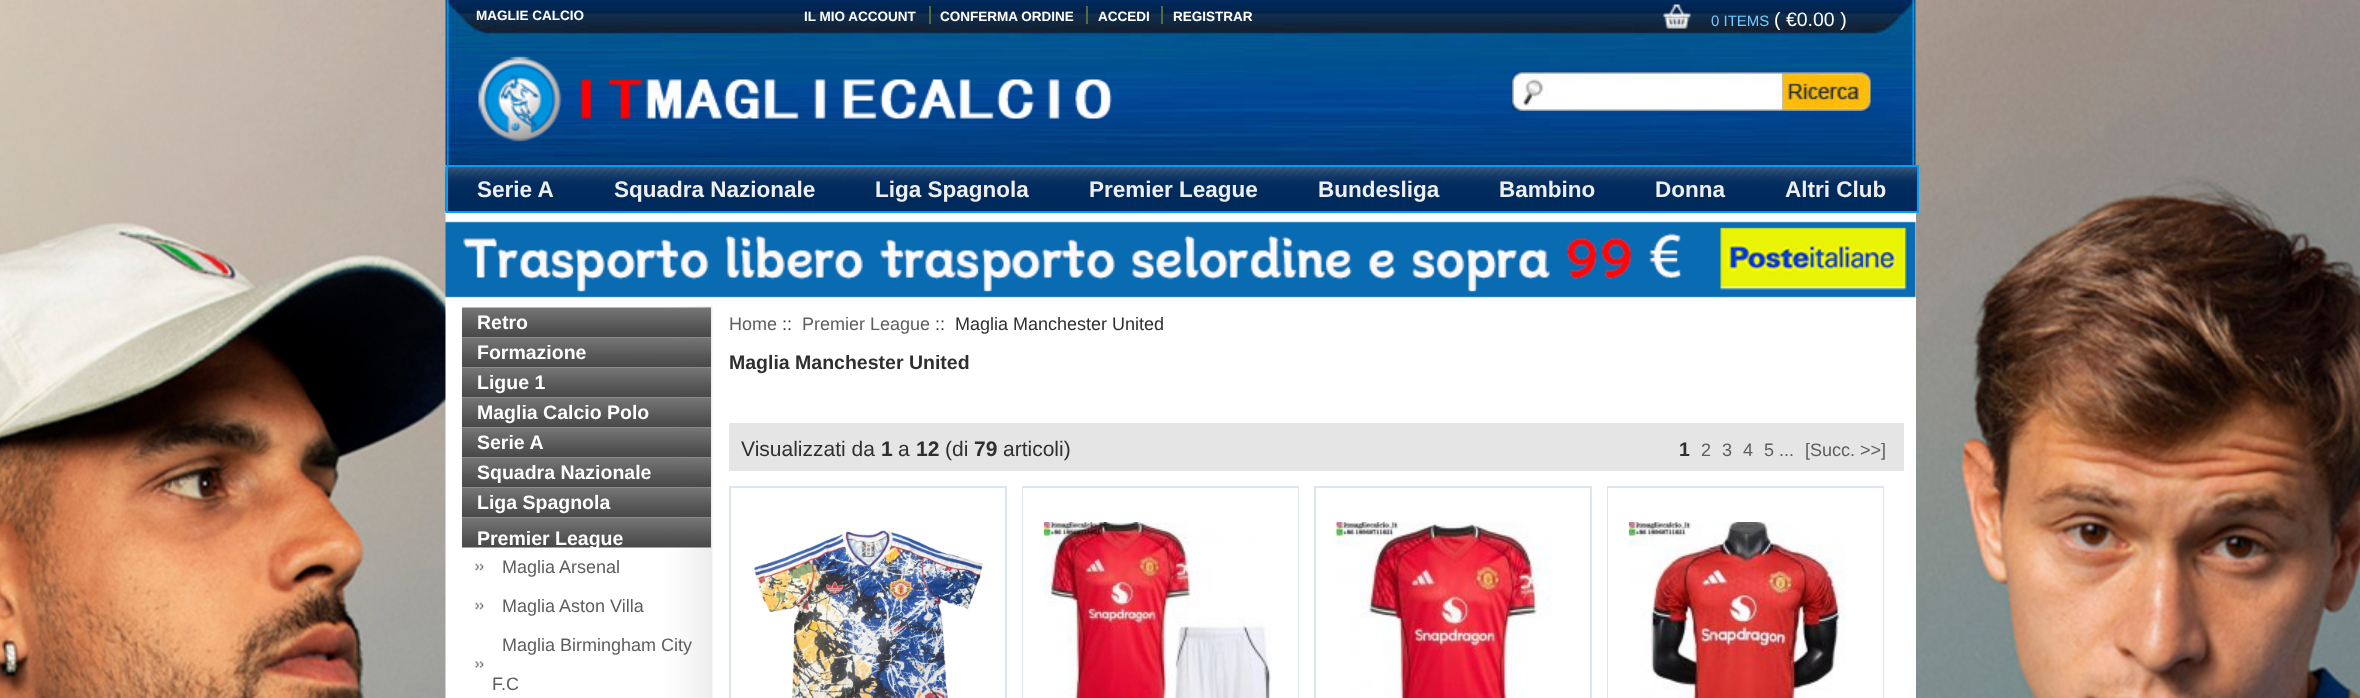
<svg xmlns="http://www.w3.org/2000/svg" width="2360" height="698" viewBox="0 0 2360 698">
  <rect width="100%" height="100%" fill="rgb(255,255,255)"/>
  <image x="0" y="0" width="2360" height="698" href="pic1.png"/>
  <image x="445" y="0" width="1471" height="165" href="pic2.png"/>
  <g font-family="Liberation Sans" font-size="13.5" font-weight="bold" fill="rgb(255,255,255)">
    <text x="476" y="20">MAGLIE CALCIO</text>
    <text x="804" y="21">IL MIO ACCOUNT</text>
  </g>
  <rect x="929" y="6" width="2" height="18" fill="rgb(85,106,64)"/>
  <text x="940" y="21" font-family="Liberation Sans" font-size="13.5" font-weight="bold" fill="rgb(255,255,255)">CONFERMA ORDINE</text>
  <rect x="1086" y="6" width="2" height="18" fill="rgb(85,106,64)"/>
  <text x="1098" y="21" font-family="Liberation Sans" font-size="13.5" font-weight="bold" fill="rgb(255,255,255)">ACCEDI</text>
  <rect x="1161" y="6" width="2" height="18" fill="rgb(85,106,64)"/>
  <text x="1173" y="21" font-family="Liberation Sans" font-size="13.5" font-weight="bold" fill="rgb(255,255,255)">REGISTRAR</text>
  <image x="1663" y="4" width="28" height="25" href="pic3.png"/>
  <text x="1711" y="26" font-family="Liberation Sans" font-size="15" fill="rgb(117,202,255)">0 ITEMS</text>
  <text x="1774" y="26" font-family="Liberation Sans" font-size="19.5" fill="rgb(255,255,255)">( €0.00 )</text>
  <image x="478" y="56" width="634" height="86" href="pic4.png"/>
  <image x="1512" y="72" width="270" height="39" href="pic5.png"/>
  <image x="1782" y="72" width="89" height="39" href="pic6.png"/>
  <image x="445" y="166" width="1472" height="46" href="pic7.png"/>
  <rect x="447" y="166" width="1471" height="46" fill="none" stroke="rgb(0,157,255)" stroke-width="2"/>
  <g font-family="Liberation Sans" font-size="22.5" font-weight="bold" fill="rgb(238,238,238)">
    <text x="477" y="197">Serie A</text>
    <text x="614" y="197">Squadra Nazionale</text>
    <text x="875" y="197">Liga Spagnola</text>
    <text x="1089" y="197">Premier League</text>
    <text x="1318" y="197">Bundesliga</text>
    <text x="1499" y="197">Bambino</text>
    <text x="1655" y="197">Donna</text>
    <text x="1785" y="197">Altri Club</text>
  </g>
  <rect x="1915" y="213" width="1" height="93" fill="rgb(255,255,255)"/>
  <image x="445" y="213" width="1471" height="93" href="pic8.png"/>
  <rect x="712" y="306" width="1204" height="392" fill="rgb(255,255,255)"/>
  <image x="445" y="306" width="268" height="392" href="pic9.png"/>
  <image x="462" y="307" width="249" height="31" href="pic10.png"/>
  <text x="477" y="329" font-family="Liberation Sans" font-size="19.5" font-weight="bold" fill="rgb(255,255,255)">Retro</text>
  <image x="462" y="337" width="249" height="31" href="pic11.png"/>
  <text x="477" y="359" font-family="Liberation Sans" font-size="19.5" font-weight="bold" fill="rgb(255,255,255)">Formazione</text>
  <image x="462" y="367" width="249" height="31" href="pic12.png"/>
  <text x="477" y="389" font-family="Liberation Sans" font-size="19.5" font-weight="bold" fill="rgb(255,255,255)">Ligue 1</text>
  <image x="462" y="397" width="249" height="31" href="pic12.png"/>
  <text x="477" y="419" font-family="Liberation Sans" font-size="19.5" font-weight="bold" fill="rgb(255,255,255)">Maglia Calcio Polo</text>
  <image x="462" y="427" width="249" height="31" href="pic12.png"/>
  <text x="477" y="449" font-family="Liberation Sans" font-size="19.5" font-weight="bold" fill="rgb(255,255,255)">Serie A</text>
  <image x="462" y="457" width="249" height="31" href="pic13.png"/>
  <text x="477" y="479" font-family="Liberation Sans" font-size="19.5" font-weight="bold" fill="rgb(255,255,255)">Squadra Nazionale</text>
  <image x="462" y="487" width="249" height="31" href="pic14.png"/>
  <text x="477" y="509" font-family="Liberation Sans" font-size="19.5" font-weight="bold" fill="rgb(255,255,255)">Liga Spagnola</text>
  <image x="462" y="517" width="249" height="31" href="pic15.png"/>
  <text x="477" y="545" font-family="Liberation Sans" font-size="19.5" font-weight="bold" fill="rgb(255,255,255)">Premier League</text>
  <image x="473" y="561" width="11" height="12" href="pic16.png"/>
  <text x="502" y="573" font-family="Liberation Sans" font-size="18" fill="rgb(94,94,94)">Maglia Arsenal</text>
  <image x="473" y="600" width="11" height="12" href="pic16.png"/>
  <text x="502" y="612" font-family="Liberation Sans" font-size="18" fill="rgb(94,94,94)">Maglia Aston Villa</text>
  <image x="473" y="658" width="11" height="13" href="pic17.png"/>
  <g font-family="Liberation Sans" font-size="18" fill="rgb(94,94,94)">
    <text x="502" y="651">Maglia Birmingham City</text>
    <text x="492" y="690">F.C</text>
    <text x="729" y="330">Home</text>
  </g>
  <text x="782" y="330" font-family="Liberation Sans" font-size="18" fill="rgb(47,47,47)">::</text>
  <text x="802" y="330" font-family="Liberation Sans" font-size="18" fill="rgb(94,94,94)">Premier League</text>
  <text x="935" y="330" font-family="Liberation Sans" font-size="18" fill="rgb(47,47,47)" xml:space="preserve">::  Maglia Manchester United</text>
  <text x="729" y="369" font-family="Liberation Sans" font-size="19.5" font-weight="bold" fill="rgb(47,47,47)">Maglia Manchester United</text>
  <rect x="729" y="423" width="1175" height="48" fill="rgb(229,229,229)"/>
  <text x="741" y="456" font-family="Liberation Sans" font-size="21" fill="rgb(47,47,47)">Visualizzati da</text>
  <text x="881" y="456" font-family="Liberation Sans" font-size="21" font-weight="bold" fill="rgb(47,47,47)">1</text>
  <text x="898" y="456" font-family="Liberation Sans" font-size="21" fill="rgb(47,47,47)">a</text>
  <text x="916" y="456" font-family="Liberation Sans" font-size="21" font-weight="bold" fill="rgb(47,47,47)">12</text>
  <text x="945" y="456" font-family="Liberation Sans" font-size="21" fill="rgb(47,47,47)">(di</text>
  <text x="974" y="456" font-family="Liberation Sans" font-size="21" font-weight="bold" fill="rgb(47,47,47)">79</text>
  <text x="1003" y="456" font-family="Liberation Sans" font-size="21" fill="rgb(47,47,47)">articoli)</text>
  <text x="1679" y="456" font-family="Liberation Sans" font-size="19.5" font-weight="bold" fill="rgb(47,47,47)">1</text>
  <g font-family="Liberation Sans" font-size="18" fill="rgb(94,94,94)">
    <text x="1701" y="456">2</text>
    <text x="1722" y="456">3</text>
    <text x="1743" y="456">4</text>
    <text x="1764" y="456">5</text>
    <text x="1779" y="456">...</text>
    <text x="1805" y="456">[Succ. &gt;&gt;]</text>
  </g>
  <rect x="729" y="486" width="278" height="212" fill="rgb(222,229,240)"/>
  <rect x="731" y="488" width="274" height="210" fill="rgb(255,255,255)"/>
  <image x="754" y="530" width="229" height="168" href="pic18.png"/>
  <rect x="1022" y="486" width="277" height="212" fill="rgb(222,229,240)"/>
  <rect x="1023" y="488" width="275" height="210" fill="rgb(255,255,255)"/>
  <image x="1044" y="522" width="228" height="176" href="pic19.png"/>
  <rect x="1314" y="486" width="278" height="212" fill="rgb(222,229,240)"/>
  <rect x="1316" y="488" width="274" height="210" fill="rgb(255,255,255)"/>
  <image x="1336" y="522" width="217" height="176" href="pic20.png"/>
  <rect x="1607" y="486" width="277" height="212" fill="rgb(222,229,240)"/>
  <rect x="1608" y="488" width="275" height="210" fill="rgb(255,255,255)"/>
  <image x="1629" y="522" width="217" height="176" href="pic21.png"/>
</svg>
